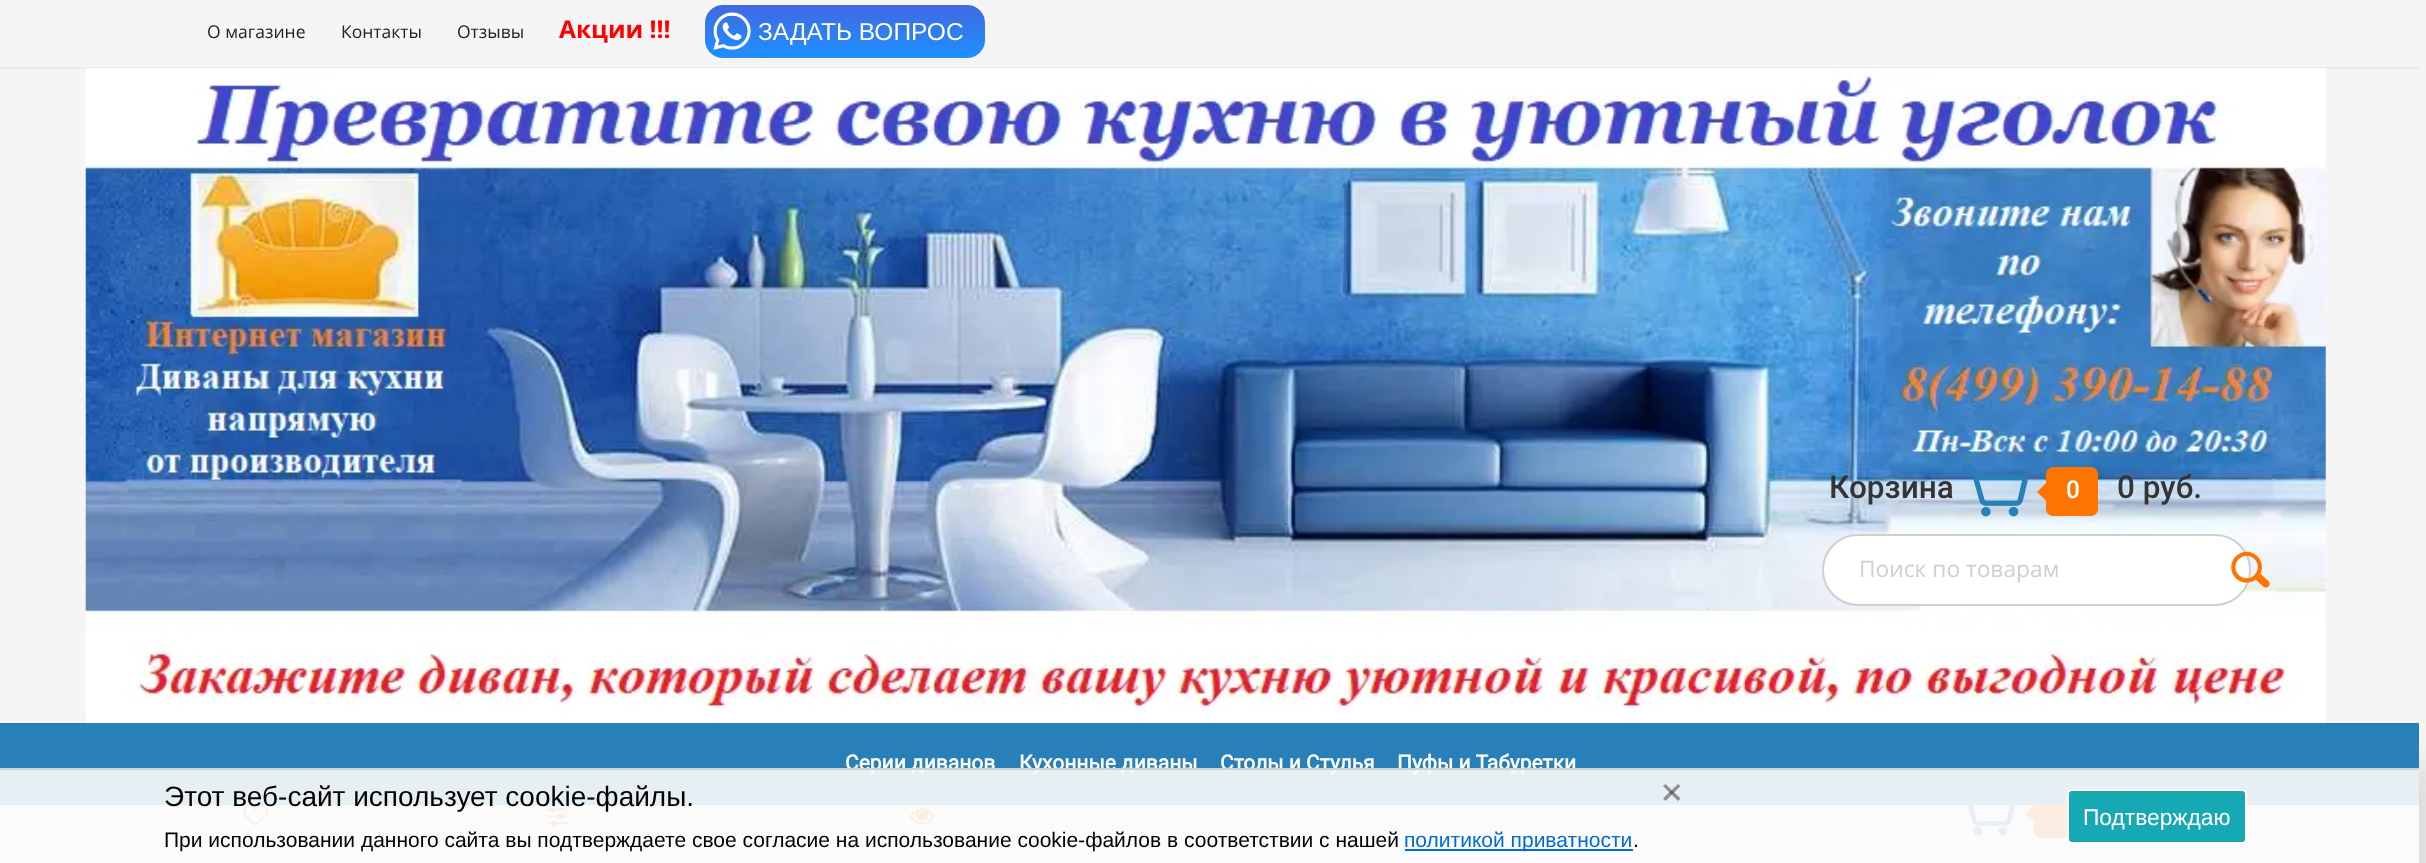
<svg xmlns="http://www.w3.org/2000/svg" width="2426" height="863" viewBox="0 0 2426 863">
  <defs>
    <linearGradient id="g1" gradientUnits="userSpaceOnUse" x1="845" y1="5.2" x2="845" y2="58"><stop offset="0" stop-color="rgb(65,105,225)"/><stop offset="1" stop-color="rgb(30,144,255)"/></linearGradient>
  </defs>
  <rect width="100%" height="100%" fill="rgb(245,245,245)"/>
  <rect x="0" y="67" width="2419" height="2" fill="rgb(234,234,234)"/>
  <g font-family="Open Sans" font-size="17.5" fill="rgb(34,34,34)">
    <text x="207" y="38">О магазине</text>
    <text x="341" y="38">Контакты</text>
    <text x="457" y="38">Отзывы</text>
  </g>
  <text x="559" y="38" font-family="Open Sans" font-size="24.5" font-weight="bold" fill="rgb(255,0,0)">Акции !!!</text>
  <rect x="705" y="5" width="280" height="53" rx="18" fill="url(#g1)"/>
  <image x="705" y="12" width="46" height="39" href="pic1.png"/>
  <text x="758" y="40" font-family="Liberation Sans" font-size="24.5" fill="rgb(255,255,255)">ЗАДАТЬ ВОПРОС</text>
  <rect x="86" y="68" width="2240" height="655" fill="rgb(255,255,255)"/>
  <image x="85" y="68" width="2241" height="645" href="pic2.png"/>
  <text x="1829" y="498" font-family="Roboto" font-size="31.5" font-weight="500" fill="rgb(52,52,52)">Корзина</text>
  <image x="1962" y="464" width="66" height="53" href="pic3.png"/>
  <rect x="2049.5" y="470.5" width="45" height="42" rx="3.5" fill="rgb(253,116,0)" stroke="rgb(253,116,0)" stroke-width="7"/>
  <path d="M2053 476V507.5L2037 492Z" fill="rgb(253,116,0)"/>
  <text x="2066" y="498" font-family="Roboto" font-size="24.5" font-weight="500" fill="rgb(255,255,255)">0</text>
  <text x="2117" y="498" font-family="Roboto" font-size="31.5" font-weight="500" fill="rgb(52,52,52)">0 руб.</text>
  <rect x="1823" y="535" width="427" height="70" rx="35" fill="rgb(255,255,255)" stroke="rgb(208,207,207)" stroke-width="2"/>
  <text x="1859" y="577" font-family="Open Sans" font-size="22.75" fill="rgb(207,207,207)">Поиск по товарам</text>
  <image x="2231" y="551" width="39" height="37" href="pic4.png"/>
  <rect x="-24" y="765" width="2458" height="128" fill="rgba(50,50,50,0.15)" filter="blur(17.5px)"/>
  <rect x="0" y="805" width="2419" height="58" fill="rgb(255,255,255)"/>
  <rect x="502" y="805" width="2" height="58" fill="rgb(237,237,237)"/>
  <image x="243" y="805" width="25" height="21" href="pic5.png"/>
  <rect x="423" y="801" width="38" height="33" rx="3" fill="none" stroke="rgb(238,238,238)" stroke-width="2"/>
  <rect x="873" y="805" width="2" height="58" fill="rgb(237,237,237)"/>
  <image x="546" y="806" width="21" height="20" href="pic6.png"/>
  <rect x="794" y="801" width="38" height="33" rx="3" fill="none" stroke="rgb(238,238,238)" stroke-width="2"/>
  <rect x="1327" y="805" width="2" height="58" fill="rgb(237,237,237)"/>
  <image x="910" y="808" width="25" height="17" href="pic7.png"/>
  <rect x="1247" y="801" width="38" height="33" rx="3" fill="none" stroke="rgb(238,238,238)" stroke-width="2"/>
  <image x="1967" y="805" width="49" height="31" href="pic8.png"/>
  <rect x="2037.5" y="792.5" width="45" height="42" rx="3.5" fill="rgb(253,116,0)" stroke="rgb(253,116,0)" stroke-width="7"/>
  <path d="M2040.5 798V829.5L2025 814Z" fill="rgb(253,116,0)"/>
  <rect x="0" y="723" width="2419" height="82" fill="rgb(41,128,185)"/>
  <g font-family="Roboto" font-size="21" font-weight="bold" fill="rgb(255,255,255)">
    <text x="845" y="770">Серии диванов</text>
    <text x="1019" y="770">Кухонные диваны</text>
    <text x="1220" y="770">Столы и Стулья</text>
    <text x="1397" y="770">Пуфы и Табуретки</text>
  </g>
  <rect x="0" y="770" width="2419" height="93" fill="rgba(251,251,251,0.9)"/>
  <rect x="0" y="768" width="2419" height="2" fill="rgb(210,210,210)"/>
  <text x="164" y="806" font-family="Liberation Sans" font-size="28" fill="rgb(0,0,0)">Этот веб-сайт использует cookie-файлы.</text>
  <path d="M1665.5 784L1680.5 798.5L1678 801L1663 786Z" fill="rgb(141,145,148)"/>
  <path d="M1663 798.5L1678 784L1680.5 786L1665.5 801Z" fill="rgba(51,51,51,0.5)"/>
  <text x="164" y="847" font-family="Liberation Sans" font-size="21" fill="rgb(0,0,0)">При использовании данного сайта вы подтверждаете свое согласие на использование cookie-файлов в соответствии с нашей</text>
  <rect x="1405" y="849" width="228" height="2" fill="rgb(0,107,216)"/>
  <text x="1404" y="847" font-family="Liberation Sans" font-size="21" fill="rgb(0,107,216)">политикой приватности</text>
  <text x="1633" y="847" font-family="Liberation Sans" font-size="21" fill="rgb(0,0,0)">.</text>
  <rect x="2068" y="790" width="178" height="53" rx="4" fill="rgb(22,169,179)" stroke="rgb(255,255,255)" stroke-width="2"/>
  <text x="2083" y="825" font-family="Liberation Sans" font-size="22.75" fill="rgb(255,255,255)">Подтверждаю</text>
</svg>
